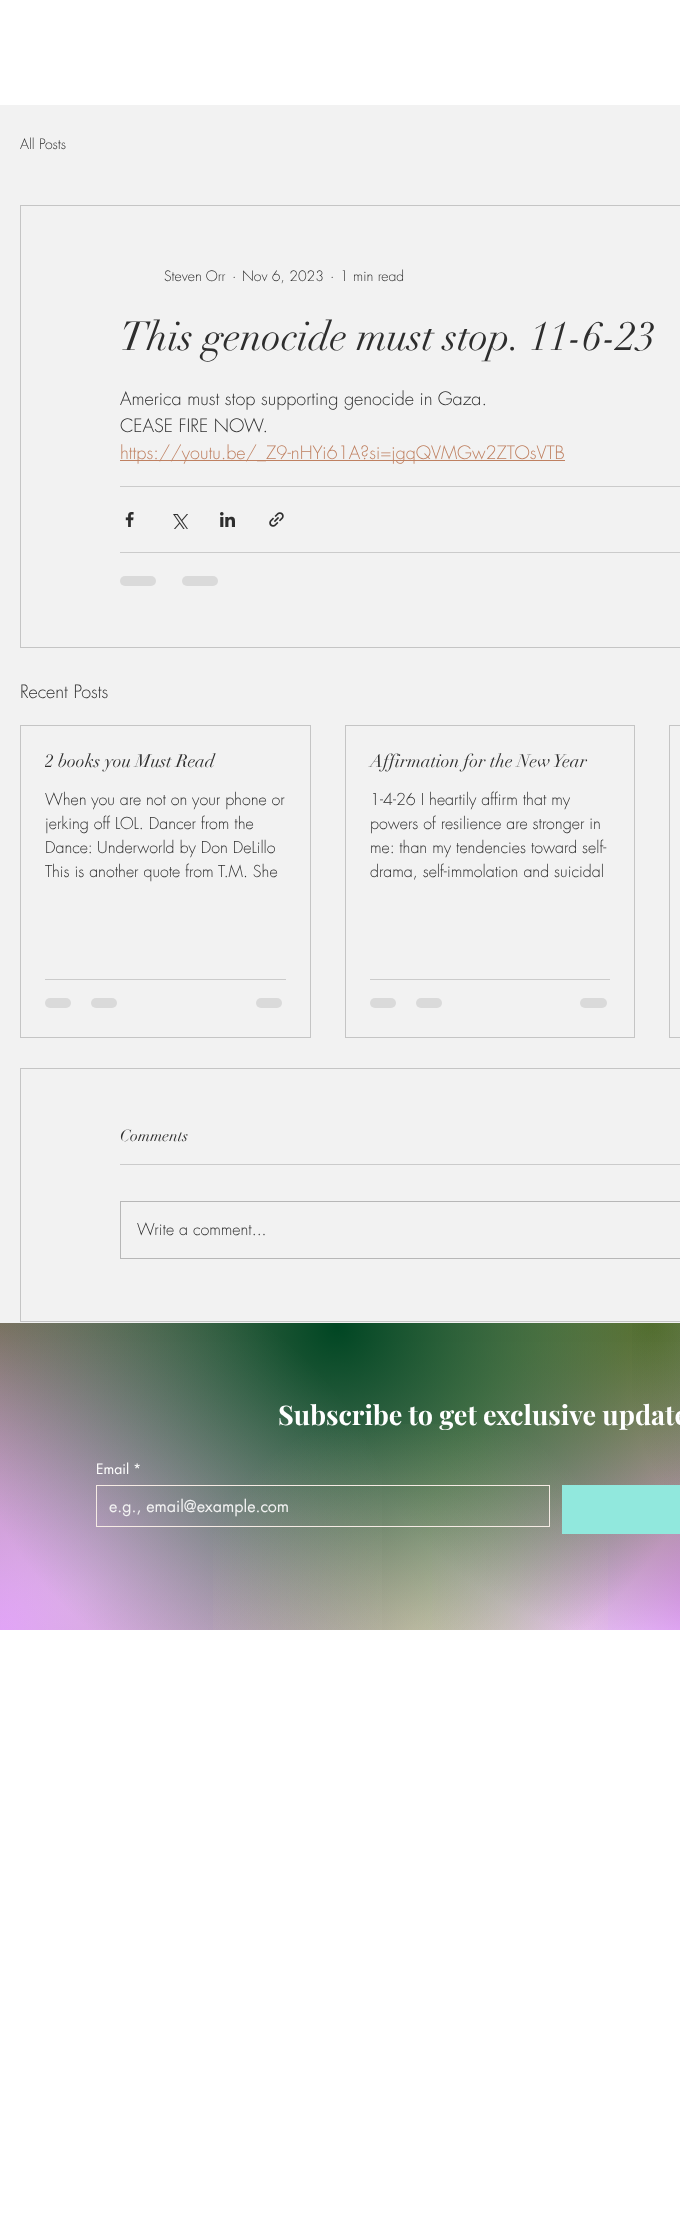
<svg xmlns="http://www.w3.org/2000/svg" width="680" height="2215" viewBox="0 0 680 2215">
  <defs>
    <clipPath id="clip1"><rect x="45" y="750" width="241" height="22"/></clipPath>
    <radialGradient id="g1" gradientUnits="userSpaceOnUse" cx="479" cy="1475" r="524"><stop offset="0" stop-color="rgb(239,239,244)"/><stop offset="1" stop-color="rgb(239,239,244)" stop-opacity="0"/></radialGradient>
    <radialGradient id="g2" gradientUnits="userSpaceOnUse" cx="0" cy="1323" r="1027"><stop offset="0" stop-color="rgb(77,96,1)"/><stop offset="0.7" stop-color="rgb(77,96,1)" stop-opacity="0"/></radialGradient>
    <radialGradient id="g3" gradientUnits="userSpaceOnUse" cx="3.1" cy="1630" r="1024"><stop offset="0" stop-color="rgb(219,142,246)"/><stop offset="0.5" stop-color="rgb(219,142,246)" stop-opacity="0"/></radialGradient>
    <radialGradient id="g4" gradientUnits="userSpaceOnUse" cx="732" cy="1584" r="777"><stop offset="0" stop-color="rgb(219,142,246)"/><stop offset="0.4" stop-color="rgb(219,142,246)" stop-opacity="0"/></radialGradient>
    <radialGradient id="g5" gradientUnits="userSpaceOnUse" cx="652" cy="1323" r="720"><stop offset="0" stop-color="rgb(77,96,1)" stop-opacity="0.78"/><stop offset="0.44" stop-color="rgb(77,96,1)" stop-opacity="0"/></radialGradient>
    <radialGradient id="g6" gradientUnits="userSpaceOnUse" cx="337" cy="1327" r="711"><stop offset="0" stop-color="rgb(0,70,35)"/><stop offset="0.55" stop-color="rgb(0,70,35)" stop-opacity="0"/></radialGradient>
    <radialGradient id="g7" gradientUnits="userSpaceOnUse" cx="979" cy="1323" r="1026"><stop offset="0" stop-color="rgb(0,70,35)" stop-opacity="0.86"/><stop offset="0.35" stop-color="rgb(0,70,35)" stop-opacity="0"/></radialGradient>
    <radialGradient id="g8" gradientUnits="userSpaceOnUse" cx="79" cy="1595" r="941"><stop offset="0" stop-color="rgb(250,250,250)" stop-opacity="0.27"/><stop offset="0.35" stop-color="rgb(250,250,250)" stop-opacity="0"/></radialGradient>
    <radialGradient id="g9" gradientUnits="userSpaceOnUse" cx="413" cy="1630" r="645"><stop offset="0" stop-color="rgb(253,234,157)" stop-opacity="0.25"/><stop offset="0.35" stop-color="rgb(253,234,157)" stop-opacity="0"/></radialGradient>
  </defs>
  <rect width="100%" height="100%" fill="rgb(255,255,255)"/>
  <rect x="0" y="105" width="680" height="1237" fill="rgb(242,242,242)"/>
  <text x="20" y="149" font-family="futura" font-size="14" font-weight="300" fill="rgb(46,46,46)">All Posts</text>
  <rect x="20.5" y="205.5" width="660" height="442" fill="none" stroke="rgb(197,197,197)"/>
  <g font-family="futura" font-size="14" font-weight="300" fill="rgb(46,46,46)">
    <text x="164" y="281">Steven Orr</text>
    <text x="232" y="281">·</text>
    <text x="242" y="281">Nov 6, 2023</text>
    <text x="330" y="281">·</text>
    <text x="340" y="281">1 min read</text>
  </g>
  <text x="120" y="350" font-family="didot" font-size="40" fill="rgb(46,46,46)">This genocide must stop. 11-6-23</text>
  <g font-family="futura" font-size="18" font-weight="300" fill="rgb(46,46,46)">
    <text>
      <tspan x="120" y="405">America must stop supporting genocide in Gaza.</tspan>
      <tspan x="120" y="432">CEASE FIRE NOW.</tspan>
    </text>
  </g>
  <rect x="120" y="460" width="445" height="1" fill="rgb(191,128,97)"/>
  <text x="120" y="459" font-family="futura" font-size="18" font-weight="300" fill="rgb(191,128,97)">https://youtu.be/_Z9-nHYi61A?si=jgqQVMGw2ZTOsVTB</text>
  <rect x="120" y="486" width="560" height="1" fill="rgb(203,203,203)"/>
  <image x="125" y="512" width="9" height="15" href="pic1.png"/>
  <image x="173" y="514" width="15" height="15" href="pic2.png"/>
  <image x="220" y="512" width="15" height="15" href="pic3.png"/>
  <image x="269" y="512" width="15" height="15" href="pic4.png"/>
  <rect x="120" y="552" width="560" height="1" fill="rgb(203,203,203)"/>
  <rect x="120" y="576" width="36" height="10" rx="5" fill="rgb(218,218,218)"/>
  <rect x="182" y="576" width="36" height="10" rx="5" fill="rgb(218,218,218)"/>
  <text x="20" y="698" font-family="futura" font-size="18" font-weight="300" fill="rgb(46,46,46)">Recent Posts</text>
  <rect x="20.5" y="725.5" width="290" height="312" fill="none" stroke="rgb(197,197,197)"/>
  <g clip-path="url(#clip1)">
    <text x="45" y="767" font-family="didot" font-size="18" fill="rgb(46,46,46)">2 books you Must Read</text>
  </g>
  <g font-family="futura" font-size="16" font-weight="300" fill="rgb(46,46,46)">
    <text>
      <tspan x="45" y="805">When you are not on your phone or</tspan>
      <tspan x="45" y="829">jerking off LOL. Dancer from the</tspan>
      <tspan x="45" y="853">Dance: Underworld by Don DeLillo</tspan>
      <tspan x="45" y="877">This is another quote from T.M. She</tspan>
    </text>
  </g>
  <rect x="45" y="979" width="241" height="1" fill="rgb(203,203,203)"/>
  <rect x="45" y="998" width="26" height="10" rx="5" fill="rgb(218,218,218)"/>
  <rect x="91" y="998" width="26" height="10" rx="5" fill="rgb(218,218,218)"/>
  <rect x="256" y="998" width="26" height="10" rx="5" fill="rgb(218,218,218)"/>
  <rect x="345.5" y="725.5" width="289" height="312" fill="none" stroke="rgb(197,197,197)"/>
  <text x="370" y="767" font-family="didot" font-size="18" fill="rgb(46,46,46)">Affirmation for the New Year</text>
  <g font-family="futura" font-size="16" font-weight="300" fill="rgb(46,46,46)">
    <text>
      <tspan x="370" y="805">1-4-26 I heartily affirm that my</tspan>
      <tspan x="370" y="829">powers of resilience are stronger in</tspan>
      <tspan x="370" y="853">me: than my tendencies toward self-</tspan>
      <tspan x="370" y="877">drama, self-immolation and suicidal</tspan>
    </text>
  </g>
  <rect x="370" y="979" width="240" height="1" fill="rgb(203,203,203)"/>
  <rect x="370" y="998" width="26" height="10" rx="5" fill="rgb(218,218,218)"/>
  <rect x="416" y="998" width="26" height="10" rx="5" fill="rgb(218,218,218)"/>
  <rect x="580" y="998" width="27" height="10" rx="5" fill="rgb(218,218,218)"/>
  <rect x="669.5" y="725.5" width="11" height="312" fill="none" stroke="rgb(197,197,197)"/>
  <rect x="20.5" y="1068.5" width="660" height="253" fill="none" stroke="rgb(197,197,197)"/>
  <text x="120" y="1141" font-family="didot" font-size="16" fill="rgb(46,46,46)">Comments</text>
  <rect x="120" y="1164" width="560" height="1" fill="rgb(203,203,203)"/>
  <rect x="120.5" y="1201.5" width="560" height="57" fill="none" stroke="rgb(183,183,183)"/>
  <text x="137" y="1235" font-family="futura" font-size="16" font-weight="300" fill="rgb(46,46,46)">Write a comment...</text>
  <rect x="22" y="1323" width="658" height="307" fill="url(#g1)"/>
  <rect x="0" y="1323" width="680" height="307" fill="url(#g2)"/>
  <rect x="0" y="1323" width="500" height="307" fill="url(#g3)"/>
  <rect x="432" y="1323" width="248" height="307" fill="url(#g4)"/>
  <rect x="344" y="1323" width="336" height="307" fill="url(#g5)"/>
  <rect x="0" y="1323" width="680" height="307" fill="url(#g6)"/>
  <rect x="632" y="1323" width="48" height="162" fill="url(#g7)"/>
  <rect x="0" y="1323" width="382" height="307" fill="url(#g8)"/>
  <rect x="213" y="1424" width="395" height="206" fill="url(#g9)"/>
  <text x="278" y="1425" font-family="Playfair Display" font-size="27" font-weight="bold" fill="rgb(255,255,255)">Subscribe to get exclusive update</text>
  <g font-family="futura" font-size="14" fill="rgb(255,255,255)">
    <text x="96" y="1474">Email</text>
    <text x="133" y="1474">*</text>
  </g>
  <rect x="96.5" y="1485.5" width="453" height="41" fill="none" stroke="rgb(246,235,228)"/>
  <text x="109" y="1512" font-family="futura" font-size="16" fill="rgb(242,242,242)">e.g., email@example.com</text>
  <rect x="562" y="1485" width="118" height="49" fill="rgb(145,232,221)"/>
</svg>
